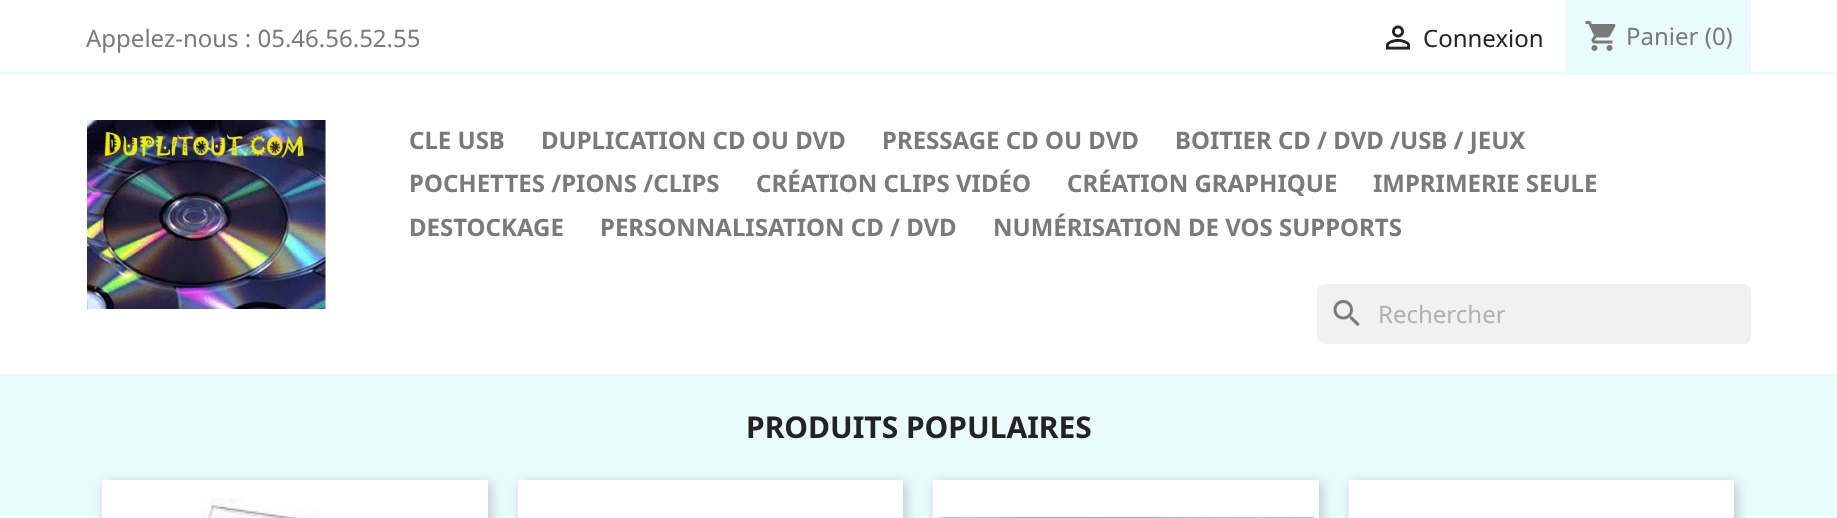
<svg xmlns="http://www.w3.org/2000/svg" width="1837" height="518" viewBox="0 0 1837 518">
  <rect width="100%" height="100%" fill="rgb(255,255,255)"/>
  <rect x="0" y="72" width="1837" height="3" fill="rgb(234,251,253)"/>
  <text x="86" y="47" font-family="Noto Sans" font-size="24" fill="rgb(122,122,122)">Appelez-nous : 05.46.56.52.55</text>
  <image x="1385" y="25" width="26" height="25" href="pic1.png"/>
  <text x="1423" y="47" font-family="Noto Sans" font-size="24" fill="rgb(35,35,35)">Connexion</text>
  <rect x="1566" y="0" width="185" height="72" fill="rgb(234,251,253)"/>
  <image x="1585" y="21" width="31" height="30" href="pic2.png"/>
  <text x="1626" y="45" font-family="Noto Sans" font-size="24" fill="rgb(122,122,122)">Panier (0)</text>
  <image x="87" y="120" width="239" height="189" href="pic3.png"/>
  <g font-family="Noto Sans" font-size="24" font-weight="bold" fill="rgb(122,122,122)">
    <text x="409" y="149">CLE USB</text>
    <text x="541" y="149">DUPLICATION CD OU DVD</text>
    <text x="882" y="149">PRESSAGE CD OU DVD</text>
    <text x="1175" y="149">BOITIER CD / DVD /USB / JEUX</text>
    <text x="409" y="192">POCHETTES /PIONS /CLIPS</text>
    <text x="756" y="192">CRÉATION CLIPS VIDÉO</text>
    <text x="1067" y="192">CRÉATION GRAPHIQUE</text>
    <text x="1373" y="192">IMPRIMERIE SEULE</text>
    <text x="409" y="236">DESTOCKAGE</text>
    <text x="600" y="236">PERSONNALISATION CD / DVD</text>
    <text x="993" y="236">NUMÉRISATION DE VOS SUPPORTS</text>
  </g>
  <rect x="1317" y="284" width="434" height="60" rx="8" fill="rgb(241,241,241)"/>
  <image x="1333" y="300" width="27" height="27" href="pic4.png"/>
  <text x="1378" y="323" font-family="Noto Sans" font-size="24" fill="rgb(177,177,177)">Rechercher</text>
  <rect x="0" y="374" width="1837" height="144" fill="rgb(234,251,253)"/>
  <text x="746" y="438" font-family="Noto Sans" font-size="30" font-weight="bold" fill="rgb(35,35,35)">PRODUITS POPULAIRES</text>
  <rect x="105" y="483" width="386" height="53" fill="rgba(0,0,0,0.2)" filter="blur(6px)"/>
  <rect x="102" y="480" width="386" height="38" fill="rgb(255,255,255)"/>
  <image x="201" y="497" width="118" height="21" href="pic5.png"/>
  <rect x="521" y="483" width="385" height="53" fill="rgba(0,0,0,0.2)" filter="blur(6px)"/>
  <rect x="518" y="480" width="385" height="38" fill="rgb(255,255,255)"/>
  <rect x="936" y="483" width="386" height="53" fill="rgba(0,0,0,0.2)" filter="blur(6px)"/>
  <rect x="933" y="480" width="386" height="38" fill="rgb(255,255,255)"/>
  <image x="939" y="514" width="375" height="4" href="pic6.png"/>
  <rect x="1352" y="483" width="385" height="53" fill="rgba(0,0,0,0.2)" filter="blur(6px)"/>
  <rect x="1349" y="480" width="385" height="38" fill="rgb(255,255,255)"/>
</svg>
